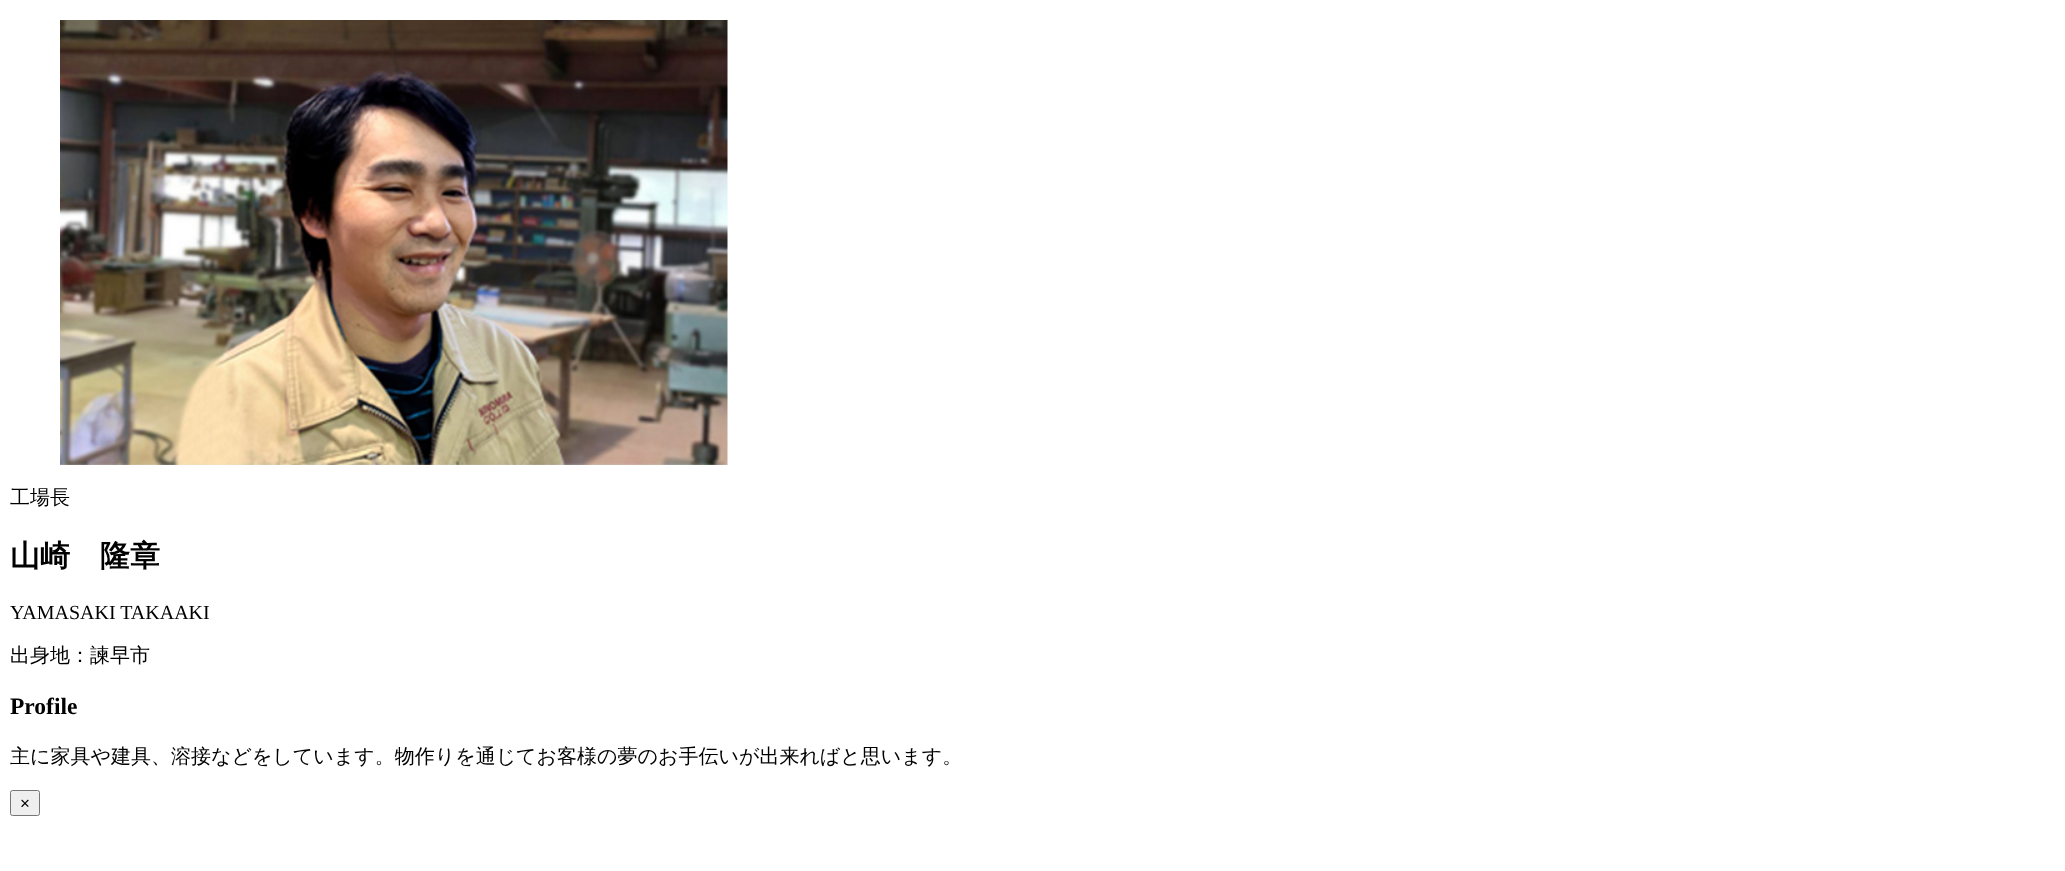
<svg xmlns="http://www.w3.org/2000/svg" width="2065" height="871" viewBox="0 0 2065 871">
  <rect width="100%" height="100%" fill="rgb(255,255,255)"/>
  <image x="60" y="20" width="668" height="445" href="pic1.png"/>
  <text x="10" y="504" font-family="WenQuanYi Zen Hei" font-size="20" font-weight="500" fill="rgb(0,0,0)">工場長</text>
  <text x="10" y="566" font-family="WenQuanYi Zen Hei" font-size="30" font-weight="bold" fill="rgb(0,0,0)">山崎　隆章</text>
  <text x="10" y="619" font-family="Liberation Serif" font-size="20" fill="rgb(0,0,0)">YAMASAKI TAKAAKI</text>
  <text x="10" y="662" font-family="WenQuanYi Zen Hei" font-size="20" font-weight="500" fill="rgb(0,0,0)">出身地：諫早市</text>
  <text x="10" y="714" font-family="Liberation Serif" font-size="23.5" font-weight="bold" fill="rgb(0,0,0)">Profile</text>
  <text x="10" y="763" font-family="WenQuanYi Zen Hei" font-size="20" font-weight="500" fill="rgb(0,0,0)">主に家具や建具、溶接などをしています。物作りを通じてお客様の夢のお手伝いが出来ればと思います。</text>
  <rect x="10.5" y="790.5" width="29" height="25" rx="2" fill="rgb(239,239,239)" stroke="rgb(118,118,118)"/>
  <text x="20" y="809" font-family="Liberation Sans" font-size="17" fill="rgb(0,0,0)">×</text>
</svg>
